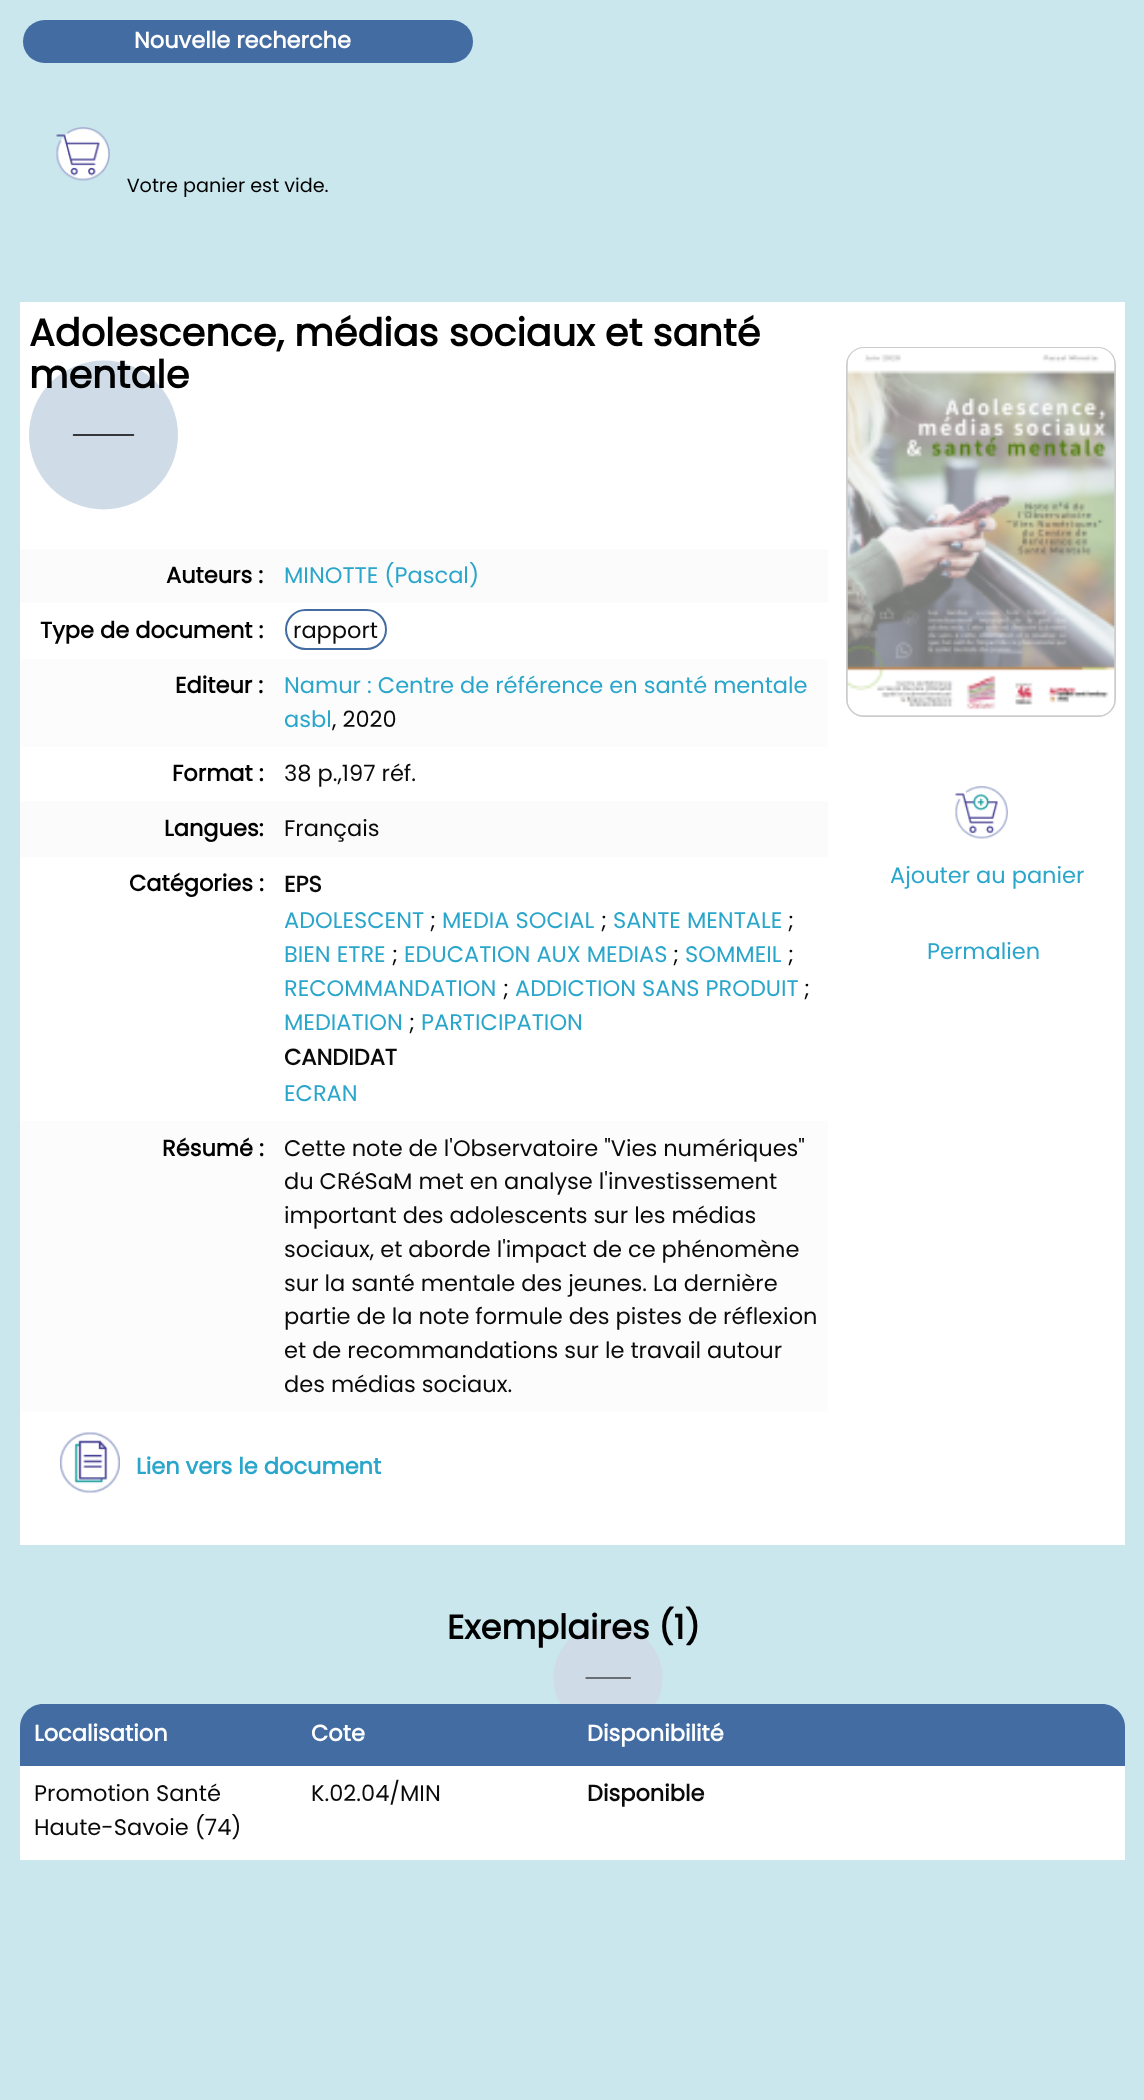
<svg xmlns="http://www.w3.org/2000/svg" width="1144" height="2100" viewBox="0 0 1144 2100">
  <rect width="100%" height="100%" fill="rgb(202,231,238)"/>
  <rect x="23" y="20" width="450" height="43" rx="21.5" fill="rgb(66,108,162)"/>
  <text x="134" y="48" font-family="Poppins" font-size="22.5" font-weight="bold" fill="rgb(255,255,255)">Nouvelle recherche</text>
  <image x="56" y="127" width="272" height="70" href="pic1.png"/>
  <rect x="20" y="302" width="1105" height="1243" fill="rgb(255,255,255)"/>
  <text x="29" y="346" font-family="Poppins" font-size="38.25" font-weight="bold" fill="rgb(0,0,0)">Adolescence, médias sociaux et santé</text>
  <circle cx="103.5" cy="435" r="74.5" fill="rgb(208,219,232)"/>
  <text x="29" y="388" font-family="Poppins" font-size="38.25" font-weight="bold" fill="rgb(0,0,0)">mentale</text>
  <path d="M73.5 435H133.5" fill="none" stroke="rgb(0,0,0)" stroke-width="1.5" stroke-linecap="round"/>
  <rect x="20" y="549" width="808" height="54" fill="rgb(251,251,251)"/>
  <text x="166" y="583" font-family="Poppins" font-size="22.5" font-weight="bold" fill="rgb(0,0,0)">Auteurs :</text>
  <text x="284" y="583" font-family="Poppins" font-size="22.5" fill="rgb(43,166,203)">MINOTTE (Pascal)</text>
  <text x="40" y="638" font-family="Poppins" font-size="22.5" font-weight="bold" fill="rgb(0,0,0)">Type de document :</text>
  <rect x="286" y="610" width="100" height="39" rx="19.5" fill="none" stroke="rgb(66,108,162)" stroke-width="2"/>
  <text x="293" y="638" font-family="Poppins" font-size="22.5" fill="rgb(10,10,10)">rapport</text>
  <rect x="20" y="659" width="808" height="88" fill="rgb(252,252,252)"/>
  <text x="175" y="693" font-family="Poppins" font-size="22.5" font-weight="bold" fill="rgb(0,0,0)">Editeur :</text>
  <g font-family="Poppins" font-size="22.5" fill="rgb(43,166,203)">
    <text>
      <tspan x="284" y="693">Namur : Centre de référence en santé mentale</tspan>
      <tspan x="284" y="727">asbl</tspan>
    </text>
  </g>
  <text x="332" y="727" font-family="Poppins" font-size="22.5" fill="rgb(10,10,10)">, 2020</text>
  <text x="172" y="781" font-family="Poppins" font-size="22.5" font-weight="bold" fill="rgb(0,0,0)">Format :</text>
  <text x="284" y="781" font-family="Poppins" font-size="22.5" fill="rgb(10,10,10)">38 p.,197 réf.</text>
  <rect x="20" y="801" width="808" height="56" fill="rgb(251,251,251)"/>
  <text x="164" y="836" font-family="Poppins" font-size="22.5" font-weight="bold" fill="rgb(0,0,0)">Langues:</text>
  <text x="284" y="836" font-family="Poppins" font-size="22.5" fill="rgb(10,10,10)">Français</text>
  <text x="129" y="891" font-family="Poppins" font-size="22.5" font-weight="bold" fill="rgb(0,0,0)">Catégories :</text>
  <text x="284" y="892" font-family="Poppins" font-size="22.5" font-weight="bold" fill="rgb(10,10,10)">EPS</text>
  <text x="284" y="928" font-family="Poppins" font-size="22.5" fill="rgb(43,166,203)">ADOLESCENT</text>
  <text x="430" y="928" font-family="Poppins" font-size="22.5" fill="rgb(10,10,10)">;</text>
  <text x="442" y="928" font-family="Poppins" font-size="22.5" fill="rgb(43,166,203)">MEDIA SOCIAL</text>
  <text x="601" y="928" font-family="Poppins" font-size="22.5" fill="rgb(10,10,10)">;</text>
  <text x="613" y="928" font-family="Poppins" font-size="22.5" fill="rgb(43,166,203)">SANTE MENTALE</text>
  <text x="788" y="928" font-family="Poppins" font-size="22.5" fill="rgb(10,10,10)">;</text>
  <text x="284" y="962" font-family="Poppins" font-size="22.5" fill="rgb(43,166,203)">BIEN ETRE</text>
  <text x="392" y="962" font-family="Poppins" font-size="22.5" fill="rgb(10,10,10)">;</text>
  <text x="404" y="962" font-family="Poppins" font-size="22.5" fill="rgb(43,166,203)">EDUCATION AUX MEDIAS</text>
  <text x="673" y="962" font-family="Poppins" font-size="22.5" fill="rgb(10,10,10)">;</text>
  <text x="685" y="962" font-family="Poppins" font-size="22.5" fill="rgb(43,166,203)">SOMMEIL</text>
  <text x="788" y="962" font-family="Poppins" font-size="22.5" fill="rgb(10,10,10)">;</text>
  <text x="284" y="996" font-family="Poppins" font-size="22.5" fill="rgb(43,166,203)">RECOMMANDATION</text>
  <text x="503" y="996" font-family="Poppins" font-size="22.5" fill="rgb(10,10,10)">;</text>
  <text x="515" y="996" font-family="Poppins" font-size="22.5" fill="rgb(43,166,203)">ADDICTION SANS PRODUIT</text>
  <text x="804" y="996" font-family="Poppins" font-size="22.5" fill="rgb(10,10,10)">;</text>
  <text x="284" y="1030" font-family="Poppins" font-size="22.5" fill="rgb(43,166,203)">MEDIATION</text>
  <text x="409" y="1030" font-family="Poppins" font-size="22.5" fill="rgb(10,10,10)">;</text>
  <text x="421" y="1030" font-family="Poppins" font-size="22.5" fill="rgb(43,166,203)">PARTICIPATION</text>
  <text x="284" y="1065" font-family="Poppins" font-size="22.5" font-weight="bold" fill="rgb(10,10,10)">CANDIDAT</text>
  <text x="284" y="1101" font-family="Poppins" font-size="22.5" fill="rgb(43,166,203)">ECRAN</text>
  <rect x="20" y="1121" width="808" height="291" fill="rgb(252,252,252)"/>
  <text x="162" y="1156" font-family="Poppins" font-size="22.5" font-weight="bold" fill="rgb(0,0,0)">Résumé :</text>
  <g font-family="Poppins" font-size="22.5" fill="rgb(10,10,10)">
    <text>
      <tspan x="284" y="1156">Cette note de l'Observatoire "Vies numériques"</tspan>
      <tspan x="284" y="1189">du CRéSaM met en analyse l'investissement</tspan>
      <tspan x="284" y="1223">important des adolescents sur les médias</tspan>
      <tspan x="284" y="1257">sociaux, et aborde l'impact de ce phénomène</tspan>
      <tspan x="284" y="1291">sur la santé mentale des jeunes. La dernière</tspan>
      <tspan x="284" y="1324">partie de la note formule des pistes de réflexion</tspan>
      <tspan x="284" y="1358">et de recommandations sur le travail autour</tspan>
      <tspan x="284" y="1392">des médias sociaux.</tspan>
    </text>
  </g>
  <image x="60" y="1432" width="60" height="61" href="pic2.png"/>
  <text x="136" y="1474" font-family="Poppins" font-size="22.5" font-weight="bold" fill="rgb(43,166,203)">Lien vers le document</text>
  <rect x="847" y="348" width="268" height="368" rx="17" fill="none" stroke="rgb(204,204,204)" stroke-width="2"/>
  <image x="847" y="348" width="268" height="368" href="pic3.png"/>
  <image x="955" y="786" width="53" height="53" href="pic4.png"/>
  <g font-family="Poppins" font-size="22.5" fill="rgb(43,166,203)">
    <text x="890" y="883">Ajouter au panier</text>
    <text x="927" y="959">Permalien</text>
  </g>
  <circle cx="608" cy="1678" r="54.5" fill="rgb(208,219,232)"/>
  <text x="447" y="1639" font-family="Poppins" font-size="33.75" font-weight="bold" fill="rgb(0,0,0)">Exemplaires (1)</text>
  <path d="M586 1678H630.5" fill="none" stroke="rgb(0,0,0)" stroke-width="1.1" stroke-linecap="round"/>
  <path d="M43 1704H296V1766H20V1727C20 1714.5 30.5 1704 43 1704Z" fill="rgb(66,108,162)"/>
  <text x="34" y="1741" font-family="Poppins" font-size="22.5" font-weight="bold" fill="rgb(255,255,255)">Localisation</text>
  <rect x="296" y="1704" width="277" height="62" fill="rgb(66,108,162)"/>
  <text x="311" y="1741" font-family="Poppins" font-size="22.5" font-weight="bold" fill="rgb(255,255,255)">Cote</text>
  <path d="M573 1704H1102C1114.5 1704 1125 1714.5 1125 1727V1766H573Z" fill="rgb(66,108,162)"/>
  <text x="587" y="1741" font-family="Poppins" font-size="22.5" font-weight="bold" fill="rgb(255,255,255)">Disponibilité</text>
  <rect x="20" y="1766" width="1105" height="94" fill="rgb(255,255,255)"/>
  <g font-family="Poppins" font-size="22.5" fill="rgb(10,10,10)">
    <text>
      <tspan x="34" y="1801">Promotion Santé</tspan>
      <tspan x="34" y="1835">Haute-Savoie (74)</tspan>
    </text>
    <text x="311" y="1801">K.02.04/MIN</text>
  </g>
  <text x="587" y="1801" font-family="Poppins" font-size="22.5" font-weight="bold" fill="rgb(10,10,10)">Disponible</text>
</svg>
